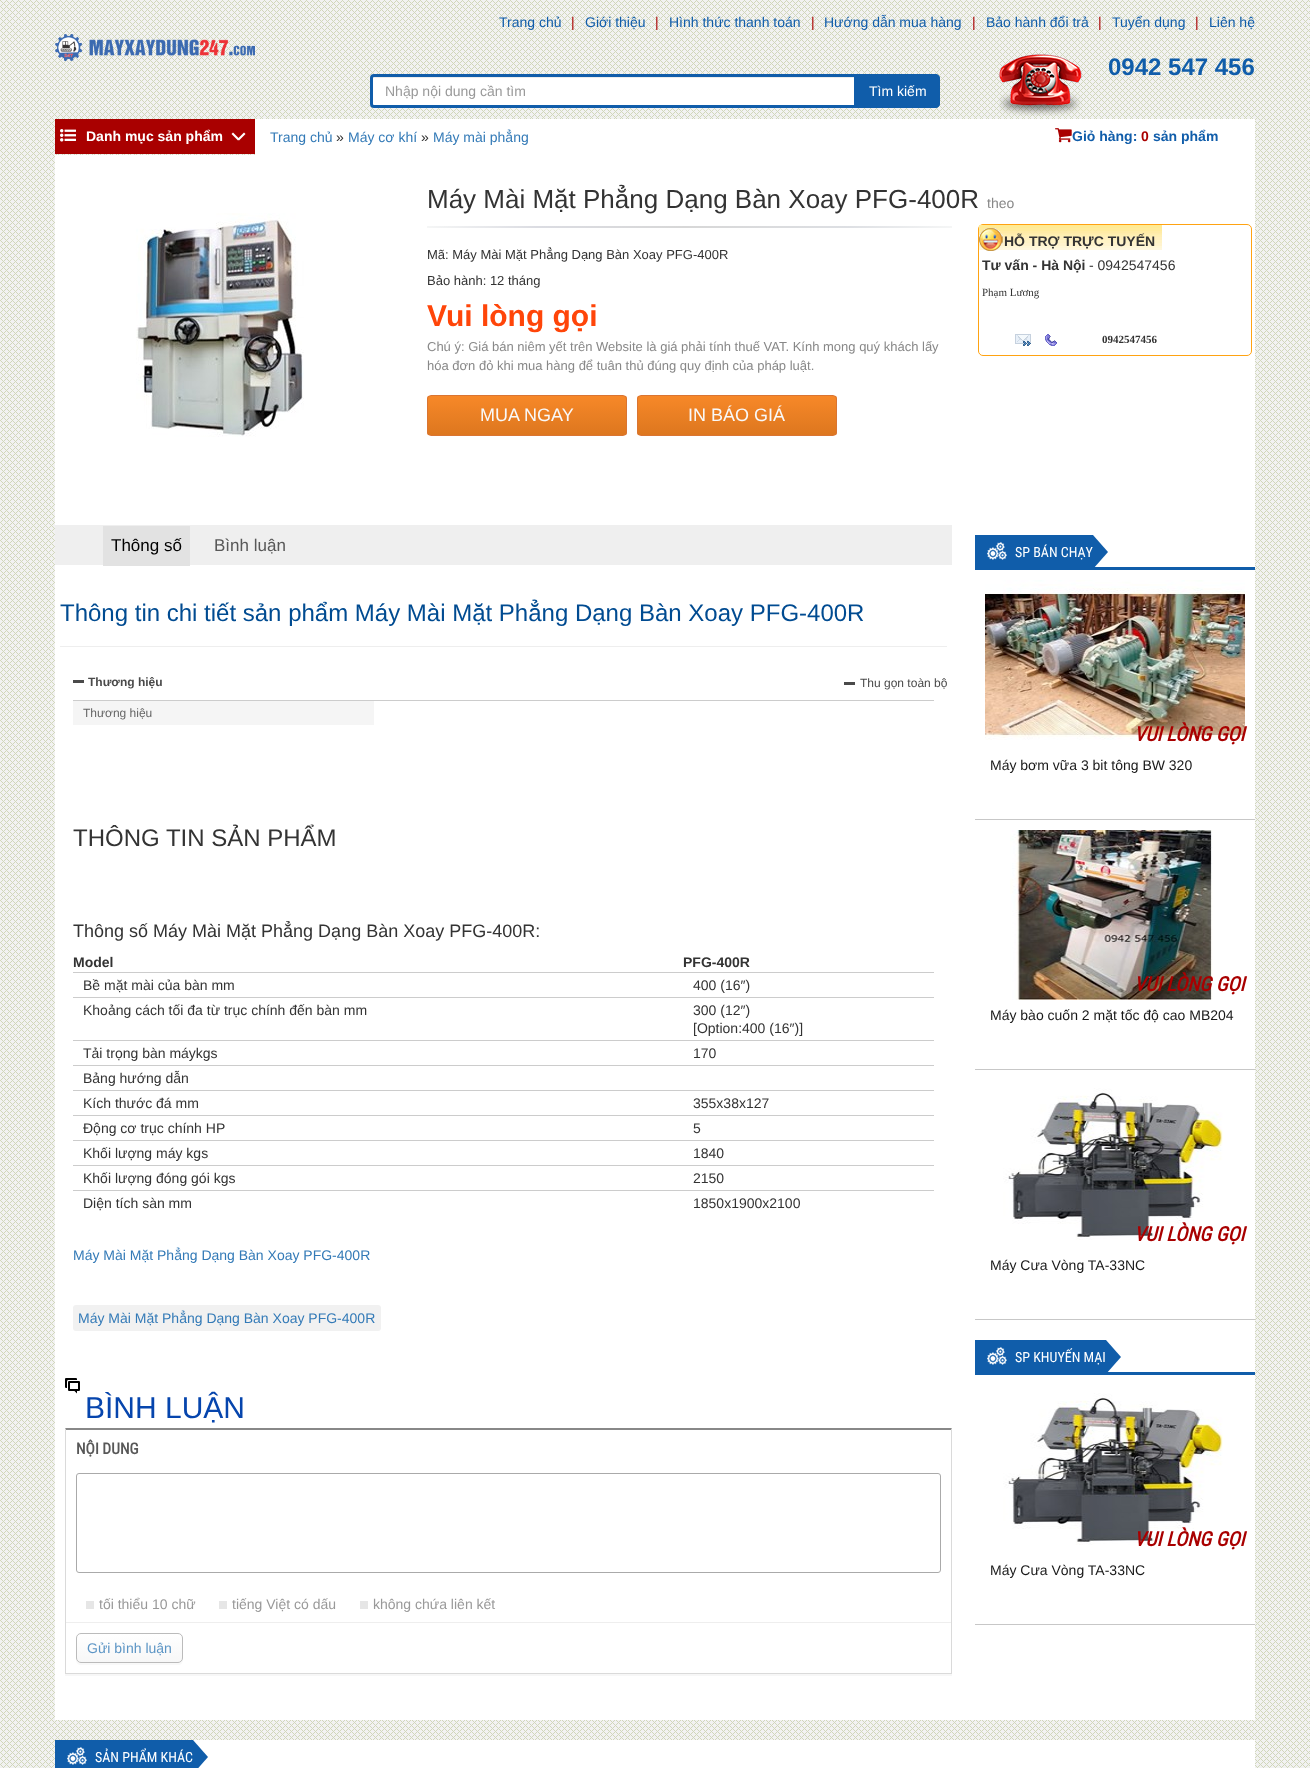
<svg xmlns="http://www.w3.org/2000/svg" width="1310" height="1768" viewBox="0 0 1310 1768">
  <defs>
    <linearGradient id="g1" gradientUnits="userSpaceOnUse" x1="427" y1="227" x2="952" y2="226"><stop offset="0" stop-color="rgb(245,246,246)"/><stop offset="0.21" stop-color="rgb(219,220,226)"/><stop offset="0.49" stop-color="rgb(215,215,215)"/><stop offset="0.8" stop-color="rgb(221,223,227)"/><stop offset="1" stop-color="rgb(245,246,246)"/></linearGradient>
    <linearGradient id="g2" gradientUnits="userSpaceOnUse" x1="427" y1="228" x2="952" y2="227"><stop offset="0" stop-color="rgb(245,246,246)"/><stop offset="0.21" stop-color="rgb(219,220,226)"/><stop offset="0.49" stop-color="rgb(215,215,215)"/><stop offset="0.8" stop-color="rgb(221,223,227)"/><stop offset="1" stop-color="rgb(245,246,246)"/></linearGradient>
    <clipPath id="clip1"><rect x="427" y="395" width="200" height="41" rx="4"/></clipPath>
    <linearGradient id="g3" gradientUnits="userSpaceOnUse" x1="527" y1="396" x2="527" y2="435"><stop offset="0" stop-color="rgb(247,136,40)"/><stop offset="1" stop-color="rgb(221,119,31)"/></linearGradient>
    <clipPath id="clip2"><rect x="637" y="395" width="200" height="41" rx="4"/></clipPath>
    <linearGradient id="g4" gradientUnits="userSpaceOnUse" x1="737" y1="396" x2="737" y2="435"><stop offset="0" stop-color="rgb(247,136,40)"/><stop offset="1" stop-color="rgb(221,119,31)"/></linearGradient>
    <clipPath id="clip3"><rect x="76" y="1633" width="107" height="30" rx="5"/></clipPath>
    <linearGradient id="g5" gradientUnits="userSpaceOnUse" x1="77" y1="1634" x2="77" y2="1662"><stop offset="0" stop-color="rgb(255,255,255)"/><stop offset="1" stop-color="rgb(247,247,247)"/></linearGradient>
  </defs>
  <rect width="100%" height="100%" fill="rgb(255,255,255)"/>
  <image x="0" y="0" width="1310" height="1768" href="pic1.png"/>
  <text x="499" y="27" font-family="Liberation Sans" font-size="14" fill="rgb(16,93,170)">Trang chủ</text>
  <text x="571" y="27" font-family="Liberation Sans" font-size="14" fill="rgb(169,0,0)">|</text>
  <text x="585" y="27" font-family="Liberation Sans" font-size="14" fill="rgb(16,93,170)">Giới thiệu</text>
  <text x="655" y="27" font-family="Liberation Sans" font-size="14" fill="rgb(169,0,0)">|</text>
  <text x="669" y="27" font-family="Liberation Sans" font-size="14" fill="rgb(16,93,170)">Hình thức thanh toán</text>
  <text x="811" y="27" font-family="Liberation Sans" font-size="14" fill="rgb(169,0,0)">|</text>
  <text x="824" y="27" font-family="Liberation Sans" font-size="14" fill="rgb(16,93,170)">Hướng dẫn mua hàng</text>
  <text x="972" y="27" font-family="Liberation Sans" font-size="14" fill="rgb(169,0,0)">|</text>
  <text x="986" y="27" font-family="Liberation Sans" font-size="14" fill="rgb(16,93,170)">Bảo hành đổi trả</text>
  <text x="1098" y="27" font-family="Liberation Sans" font-size="14" fill="rgb(169,0,0)">|</text>
  <text x="1112" y="27" font-family="Liberation Sans" font-size="14" fill="rgb(16,93,170)">Tuyển dụng</text>
  <text x="1195" y="27" font-family="Liberation Sans" font-size="14" fill="rgb(169,0,0)">|</text>
  <text x="1209" y="27" font-family="Liberation Sans" font-size="14" fill="rgb(16,93,170)">Liên hệ</text>
  <image x="55" y="34" width="200" height="27" href="pic2.png"/>
  <image x="999" y="54" width="83" height="62" href="pic3.png"/>
  <text x="1108" y="75" font-family="Liberation Sans" font-size="24" font-weight="bold" fill="rgb(16,93,170)">0942 547 456</text>
  <path d="M374 74H857V108H374C372 108 370 106 370 104V78C370 76 372 74 374 74Z" fill="rgb(255,255,255)"/>
  <path d="M374 78H854V77H374L373 78V79C373 78 373 78 374 78Z" fill="rgb(236,236,236)"/>
  <path d="M374 75.5H855.5V106.5H374C372.5 106.5 371.5 105.5 371.5 104V78C371.5 76.5 372.5 75.5 374 75.5Z" fill="none" stroke="rgb(16,93,170)" stroke-width="3"/>
  <text x="385" y="96" font-family="Liberation Sans" font-size="14" fill="rgb(153,153,153)">Nhập nội dung cần tìm</text>
  <path d="M856.5 74.5H936C938 74.5 939.5 76 939.5 78V104C939.5 106 938 107.5 936 107.5H856.5Z" fill="rgb(16,93,170)" stroke="rgb(16,93,170)"/>
  <text x="869" y="96" font-family="Liberation Sans" font-size="14" fill="rgb(255,255,255)">Tìm kiếm</text>
  <rect x="55" y="119" width="200" height="35" fill="rgb(169,0,0)"/>
  <image x="60" y="129" width="16" height="13" href="pic4.png"/>
  <text x="86" y="141" font-family="Liberation Sans" font-size="14" font-weight="bold" fill="rgb(255,255,255)">Danh mục sản phẩm</text>
  <path d="M233 132.5L239.5 139L238 140.5L231.5 134Z" fill="rgb(255,255,255)"/>
  <path d="M237.5 139L244 132.5L245.5 134L239 140.5Z" fill="rgb(255,255,255)"/>
  <rect x="255" y="119" width="1000" height="36" fill="rgb(255,255,255)"/>
  <text x="270" y="142" font-family="Liberation Sans" font-size="14" fill="rgb(51,122,183)">Trang chủ</text>
  <text x="336" y="142" font-family="Liberation Sans" font-size="14" fill="rgb(51,51,51)">»</text>
  <text x="348" y="142" font-family="Liberation Sans" font-size="14" fill="rgb(51,122,183)">Máy cơ khí</text>
  <text x="421" y="142" font-family="Liberation Sans" font-size="14" fill="rgb(51,51,51)">»</text>
  <text x="433" y="142" font-family="Liberation Sans" font-size="14" fill="rgb(51,122,183)">Máy mài phẳng</text>
  <image x="1055" y="128" width="17" height="15" href="pic5.png"/>
  <text x="1072" y="141" font-family="Liberation Sans" font-size="14" font-weight="bold" fill="rgb(16,93,170)">Giỏ hàng:</text>
  <text x="1141" y="141" font-family="Liberation Sans" font-size="14" font-weight="bold" fill="rgb(169,0,0)">0</text>
  <text x="1153" y="141" font-family="Liberation Sans" font-size="14" font-weight="bold" fill="rgb(16,93,170)">sản phẩm</text>
  <rect x="55" y="155" width="1200" height="1565" fill="rgb(255,255,255)"/>
  <image x="136" y="213" width="168" height="224" href="pic6.png"/>
  <text x="427" y="208" font-family="Liberation Sans" font-size="26" fill="rgb(51,51,51)">Máy Mài Mặt Phẳng Dạng Bàn Xoay PFG-400R</text>
  <text x="987" y="208" font-family="Liberation Sans" font-size="14" fill="rgb(136,136,136)">theo</text>
  <rect x="427" y="226" width="525" height="1" fill="url(#g1)"/>
  <rect x="427" y="227" width="525" height="1" fill="url(#g2)"/>
  <g font-family="Liberation Sans" font-size="13" fill="rgb(51,51,51)">
    <text x="427" y="259">Mã: Máy Mài Mặt Phẳng Dạng Bàn Xoay PFG-400R</text>
    <text x="427" y="285">Bảo hành: 12 tháng</text>
  </g>
  <text x="427" y="326" font-family="Liberation Sans" font-size="30" font-weight="bold" fill="rgb(255,69,9)">Vui lòng gọi</text>
  <g font-family="Liberation Sans" font-size="13" fill="rgb(136,136,136)">
    <text>
      <tspan x="427" y="351">Chú ý: Giá bán niêm yết trên Website là giá phải tính thuế VAT. Kính mong quý khách lấy</tspan>
      <tspan x="427" y="370">hóa đơn đỏ khi mua hàng để tuân thủ đúng quy định của pháp luật.</tspan>
    </text>
  </g>
  <g clip-path="url(#clip1)">
    <rect x="427" y="396" width="200" height="39" fill="url(#g3)"/>
  </g>
  <rect x="427.5" y="395.5" width="199" height="40" rx="3.5" fill="none" stroke="rgb(218,117,50)"/>
  <text x="480" y="421" font-family="Liberation Sans" font-size="18" fill="rgb(249,249,249)">MUA NGAY</text>
  <g clip-path="url(#clip2)">
    <rect x="637" y="396" width="200" height="39" fill="url(#g4)"/>
  </g>
  <rect x="637.5" y="395.5" width="199" height="40" rx="3.5" fill="none" stroke="rgb(218,117,50)"/>
  <text x="688" y="421" font-family="Liberation Sans" font-size="18" fill="rgb(249,249,249)">IN BÁO GIÁ</text>
  <rect x="978.5" y="224.5" width="273" height="131" rx="4.5" fill="none" stroke="rgb(255,163,18)"/>
  <image x="979" y="225" width="183" height="25" href="pic7.png"/>
  <image x="979" y="228" width="24" height="23" href="pic8.png"/>
  <g font-family="Liberation Sans" font-size="14" font-weight="bold" fill="rgb(51,51,51)">
    <text x="1004" y="246">HỖ TRỢ TRỰC TUYẾN</text>
    <text x="982" y="270">Tư vấn - Hà Nội</text>
  </g>
  <text x="1089" y="270" font-family="Liberation Sans" font-size="14" fill="rgb(51,51,51)">- 0942547456</text>
  <text x="982" y="296" font-family="Liberation Serif" font-size="11" fill="rgb(51,51,51)">Phạm Lương</text>
  <image x="1015" y="334" width="16" height="12" href="pic9.png"/>
  <image x="1045" y="334" width="12" height="12" href="pic10.png"/>
  <text x="1102" y="343" font-family="Liberation Serif" font-size="11" font-weight="bold" fill="rgb(51,51,51)">0942547456</text>
  <rect x="55" y="525" width="897" height="40" fill="rgb(239,239,239)"/>
  <rect x="103" y="526" width="87" height="40" fill="rgb(226,226,226)"/>
  <text x="111" y="551" font-family="Liberation Sans" font-size="17" fill="rgb(0,0,0)">Thông số</text>
  <text x="214" y="551" font-family="Liberation Sans" font-size="17" fill="rgb(88,88,88)">Bình luận</text>
  <text x="60" y="621" font-family="Liberation Sans" font-size="24" fill="rgb(0,75,145)">Thông tin chi tiết sản phẩm Máy Mài Mặt Phẳng Dạng Bàn Xoay PFG-400R</text>
  <rect x="60" y="646" width="887" height="1" fill="rgb(238,238,238)"/>
  <rect x="844" y="682" width="11" height="3" fill="rgb(74,74,74)"/>
  <text x="860" y="687" font-family="Liberation Sans" font-size="12" fill="rgb(74,74,74)">Thu gọn toàn bộ</text>
  <rect x="73" y="680" width="11" height="3" fill="rgb(74,74,74)"/>
  <text x="88" y="686" font-family="Liberation Sans" font-size="12" font-weight="bold" fill="rgb(74,74,74)">Thương hiệu</text>
  <rect x="73" y="700" width="861" height="1" fill="rgb(204,204,204)"/>
  <rect x="73" y="701" width="301" height="24" fill="rgb(245,245,245)"/>
  <text x="83" y="717" font-family="Liberation Sans" font-size="12" fill="rgb(102,102,102)">Thương hiệu</text>
  <text x="73" y="846" font-family="Liberation Sans" font-size="24" fill="rgb(51,51,51)">THÔNG TIN SẢN PHẨM</text>
  <text x="73" y="937" font-family="Liberation Sans" font-size="18" fill="rgb(51,51,51)">Thông số Máy Mài Mặt Phẳng Dạng Bàn Xoay PFG-400R:</text>
  <g font-family="Liberation Sans" font-size="14" font-weight="bold" fill="rgb(51,51,51)">
    <text x="73" y="967">Model</text>
    <text x="683" y="967">PFG-400R</text>
  </g>
  <text x="83" y="990" font-family="Liberation Sans" font-size="14" fill="rgb(51,51,51)">Bề mặt mài của bàn mm</text>
  <rect x="73" y="972" width="861" height="1" fill="rgb(204,204,204)"/>
  <g font-family="Liberation Sans" font-size="14" fill="rgb(51,51,51)">
    <text x="693" y="990">400 (16″)</text>
    <text x="83" y="1015">Khoảng cách tối đa từ trục chính đến bàn mm</text>
  </g>
  <rect x="73" y="997" width="861" height="1" fill="rgb(204,204,204)"/>
  <g font-family="Liberation Sans" font-size="14" fill="rgb(51,51,51)">
    <text>
      <tspan x="693" y="1015">300 (12″)</tspan>
      <tspan x="693" y="1033">[Option:400 (16″)]</tspan>
    </text>
    <text x="83" y="1058">Tải trọng bàn máykgs</text>
  </g>
  <rect x="73" y="1040" width="861" height="1" fill="rgb(204,204,204)"/>
  <text x="693" y="1058" font-family="Liberation Sans" font-size="14" fill="rgb(51,51,51)">170</text>
  <rect x="73" y="1065" width="861" height="1" fill="rgb(204,204,204)"/>
  <g font-family="Liberation Sans" font-size="14" fill="rgb(51,51,51)">
    <text>
      <tspan x="83" y="1083">Bảng hướng dẫn</tspan>
      <tspan x="83" y="1108">Kích thước đá mm</tspan>
    </text>
  </g>
  <rect x="73" y="1090" width="861" height="1" fill="rgb(204,204,204)"/>
  <g font-family="Liberation Sans" font-size="14" fill="rgb(51,51,51)">
    <text x="693" y="1108">355x38x127</text>
    <text x="83" y="1133">Động cơ trục chính HP</text>
  </g>
  <rect x="73" y="1115" width="861" height="1" fill="rgb(204,204,204)"/>
  <g font-family="Liberation Sans" font-size="14" fill="rgb(51,51,51)">
    <text x="693" y="1133">5</text>
    <text x="83" y="1158">Khối lượng máy kgs</text>
  </g>
  <rect x="73" y="1140" width="861" height="1" fill="rgb(204,204,204)"/>
  <g font-family="Liberation Sans" font-size="14" fill="rgb(51,51,51)">
    <text x="693" y="1158">1840</text>
    <text x="83" y="1183">Khối lượng đóng gói kgs</text>
  </g>
  <rect x="73" y="1165" width="861" height="1" fill="rgb(204,204,204)"/>
  <g font-family="Liberation Sans" font-size="14" fill="rgb(51,51,51)">
    <text x="693" y="1183">2150</text>
    <text x="83" y="1208">Diện tích sàn mm</text>
  </g>
  <rect x="73" y="1190" width="861" height="1" fill="rgb(204,204,204)"/>
  <text x="693" y="1208" font-family="Liberation Sans" font-size="14" fill="rgb(51,51,51)">1850x1900x2100</text>
  <text x="73" y="1260" font-family="Liberation Sans" font-size="14" fill="rgb(51,122,183)">Máy Mài Mặt Phẳng Dạng Bàn Xoay PFG-400R</text>
  <rect x="73" y="1305" width="308" height="26" rx="3" fill="rgb(241,241,241)"/>
  <text x="78" y="1323" font-family="Liberation Sans" font-size="14" fill="rgb(51,122,183)">Máy Mài Mặt Phẳng Dạng Bàn Xoay PFG-400R</text>
  <image x="65" y="1378" width="15" height="16" href="pic11.png"/>
  <text x="85" y="1418" font-family="Liberation Sans" font-size="30" fill="rgb(6,69,173)">BÌNH LUẬN</text>
  <rect x="65" y="1674" width="887" height="2" fill="rgb(247,247,247)"/>
  <path d="M65 1428H952L951 1430H66Z" fill="rgb(136,136,136)"/>
  <path d="M952 1428V1674L951 1673V1430Z" fill="rgb(218,218,218)"/>
  <rect x="65" y="1673" width="887" height="1" fill="rgb(218,218,218)"/>
  <path d="M65 1674V1428L66 1430V1673Z" fill="rgb(218,218,218)"/>
  <text x="76" y="1454" font-family="Roboto Condensed" font-size="15.5" font-weight="bold" fill="rgb(88,88,88)">NỘI DUNG</text>
  <rect x="76.5" y="1473.5" width="864" height="99" rx="2.5" fill="none" stroke="rgb(170,170,170)"/>
  <rect x="66" y="1622" width="885" height="1" fill="rgb(238,238,238)"/>
  <rect x="86" y="1601" width="8" height="8" fill="rgb(230,230,230)"/>
  <text x="99" y="1609" font-family="Liberation Sans" font-size="14" fill="rgb(153,153,153)">tối thiểu 10 chữ</text>
  <rect x="219" y="1601" width="8" height="8" fill="rgb(230,230,230)"/>
  <text x="232" y="1609" font-family="Liberation Sans" font-size="14" fill="rgb(153,153,153)">tiếng Việt có dấu</text>
  <rect x="360" y="1601" width="8" height="8" fill="rgb(230,230,230)"/>
  <text x="373" y="1609" font-family="Liberation Sans" font-size="14" fill="rgb(153,153,153)">không chứa liên kết</text>
  <path d="M76 1658V1660C76 1663 78 1665 81 1665H178C181 1665 183 1663 183 1660V1658C183 1661 181 1663 178 1663H81C78 1663 76 1661 76 1658Z" fill="rgb(249,249,249)"/>
  <g clip-path="url(#clip3)">
    <rect x="76" y="1634" width="107" height="28" fill="url(#g5)"/>
  </g>
  <rect x="76.5" y="1633.5" width="106" height="29" rx="4.5" fill="none" stroke="rgb(187,187,187)"/>
  <text x="87" y="1653" font-family="Liberation Sans" font-size="14" fill="rgb(92,149,197)">Gửi bình luận</text>
  <rect x="1093" y="567" width="162" height="3" fill="rgb(16,93,170)"/>
  <rect x="975" y="535" width="118" height="35" fill="rgb(16,93,170)"/>
  <image x="987" y="542" width="20" height="18" href="pic12.png"/>
  <text x="1015" y="557" font-family="Roboto Condensed" font-size="14" fill="rgb(255,255,255)">SP BÁN CHẠY</text>
  <path d="M1093 569V535L1108 552Z" fill="rgb(16,93,170)"/>
  <rect x="975" y="819" width="280" height="1" fill="rgb(199,199,199)"/>
  <image x="985" y="580" width="260" height="160" href="pic13.png"/>
  <text x="1134" y="741" font-family="Roboto Condensed" font-size="20" font-weight="bold" font-style="italic" fill="rgb(169,0,0)">VUI LÒNG GỌI</text>
  <text x="990" y="770" font-family="Liberation Sans" font-size="14" fill="rgb(24,24,24)">Máy bơm vữa 3 bit tông BW 320</text>
  <rect x="975" y="1069" width="280" height="1" fill="rgb(199,199,199)"/>
  <image x="1010" y="830" width="203" height="170" href="pic14.png"/>
  <text x="1134" y="991" font-family="Roboto Condensed" font-size="20" font-weight="bold" font-style="italic" fill="rgb(169,0,0)">VUI LÒNG GỌI</text>
  <text x="990" y="1020" font-family="Liberation Sans" font-size="14" fill="rgb(24,24,24)">Máy bào cuốn 2 mặt tốc độ cao MB204</text>
  <rect x="975" y="1319" width="280" height="1" fill="rgb(199,199,199)"/>
  <image x="1003" y="1088" width="220" height="152" href="pic15.png"/>
  <text x="1134" y="1241" font-family="Roboto Condensed" font-size="20" font-weight="bold" font-style="italic" fill="rgb(169,0,0)">VUI LÒNG GỌI</text>
  <text x="990" y="1270" font-family="Liberation Sans" font-size="14" fill="rgb(24,24,24)">Máy Cưa Vòng TA-33NC</text>
  <rect x="1106" y="1372" width="149" height="3" fill="rgb(16,93,170)"/>
  <rect x="975" y="1340" width="131" height="35" fill="rgb(16,93,170)"/>
  <image x="987" y="1347" width="20" height="18" href="pic12.png"/>
  <text x="1015" y="1362" font-family="Roboto Condensed" font-size="14" fill="rgb(255,255,255)">SP KHUYẾN MẠI</text>
  <path d="M1106 1374V1340L1121 1357Z" fill="rgb(16,93,170)"/>
  <rect x="975" y="1624" width="280" height="1" fill="rgb(199,199,199)"/>
  <image x="1003" y="1393" width="220" height="152" href="pic15.png"/>
  <text x="1134" y="1546" font-family="Roboto Condensed" font-size="20" font-weight="bold" font-style="italic" fill="rgb(169,0,0)">VUI LÒNG GỌI</text>
  <text x="990" y="1575" font-family="Liberation Sans" font-size="14" fill="rgb(24,24,24)">Máy Cưa Vòng TA-33NC</text>
  <rect x="193" y="1740" width="1062" height="28" fill="rgb(255,255,255)"/>
  <rect x="55" y="1740" width="138" height="28" fill="rgb(16,93,170)"/>
  <image x="67" y="1747" width="20" height="18" href="pic12.png"/>
  <text x="95" y="1762" font-family="Roboto Condensed" font-size="14" fill="rgb(255,255,255)">SẢN PHẨM KHÁC</text>
  <path d="M193 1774V1740L208 1757Z" fill="rgb(16,93,170)"/>
</svg>
